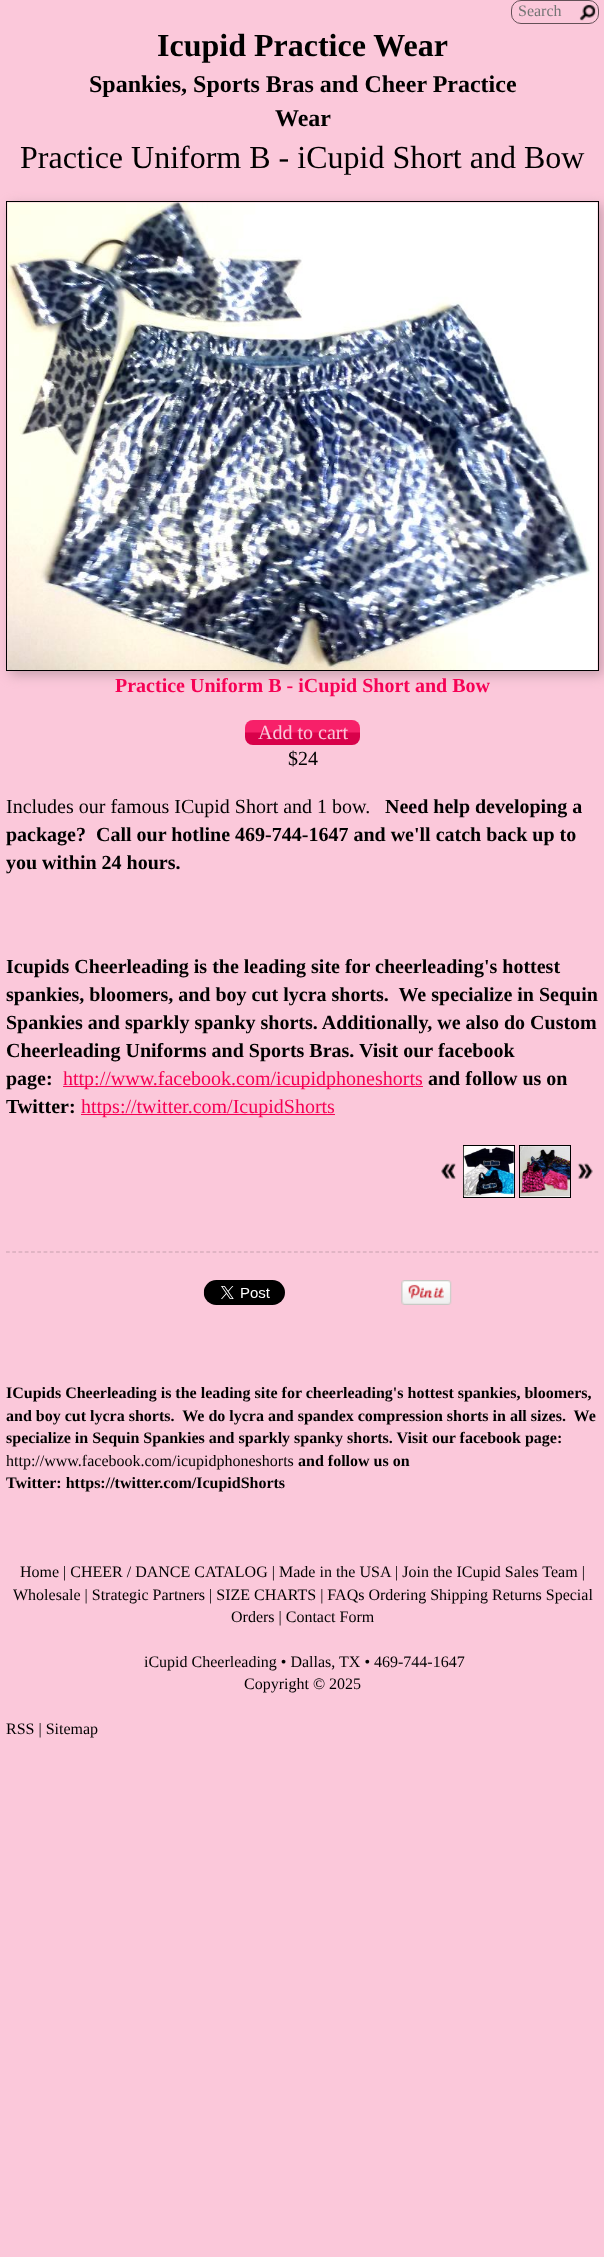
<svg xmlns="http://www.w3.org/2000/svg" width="604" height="2257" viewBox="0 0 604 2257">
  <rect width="100%" height="100%" fill="rgb(251,200,218)"/>
  <image x="579" y="4" width="17" height="17" href="pic1.png"/>
  <rect x="511.5" y="0.5" width="87" height="23" rx="9.5" fill="none" stroke="rgb(100,80,87)"/>
  <text x="518" y="16" font-family="Liberation Serif" font-size="16" fill="rgb(117,117,117)">Search</text>
  <text x="157" y="56" font-family="Liberation Serif" font-size="32" font-weight="bold" fill="rgb(0,0,0)">Icupid Practice Wear</text>
  <g font-family="Liberation Serif" font-size="24" font-weight="bold" fill="rgb(0,0,0)">
    <text x="89" y="92">Spankies, Sports Bras and Cheer Practice</text>
    <text x="275" y="126">Wear</text>
  </g>
  <text x="20" y="168" font-family="Liberation Serif" font-size="32" fill="rgb(0,0,0)">Practice Uniform B - iCupid Short and Bow</text>
  <rect x="10" y="205" width="593" height="470" fill="rgb(200,160,174)" filter="blur(6px)"/>
  <rect x="6.5" y="201.5" width="592" height="469" fill="rgb(251,200,218)" stroke="rgb(0,0,0)"/>
  <image x="7" y="202" width="591" height="468" href="pic2.png"/>
  <text x="115" y="692" font-family="Liberation Serif" font-size="20" font-weight="bold" fill="rgb(246,2,85)">Practice Uniform B - iCupid Short and Bow</text>
  <rect x="245" y="720" width="115" height="25" rx="8" fill="rgb(246,2,85)"/>
  <image x="245" y="720" width="115" height="25" href="pic3.png"/>
  <text x="258" y="739" font-family="Liberation Serif" font-size="20" fill="rgb(251,200,218)">Add to cart</text>
  <g font-family="Liberation Serif" font-size="20" fill="rgb(0,0,0)">
    <text x="288" y="765">$24</text>
    <text x="6" y="813">Includes our famous ICupid Short and 1 bow.</text>
  </g>
  <g font-family="Liberation Serif" font-size="20" font-weight="bold" fill="rgb(0,0,0)">
    <text x="385" y="813">Need help developing a</text>
    <text xml:space="preserve"><tspan x="6" y="841">package?  Call our hotline 469-744-1647 and we'll catch back up to</tspan><tspan x="6" y="869">you within 24 hours.</tspan></text>
    <text xml:space="preserve"><tspan x="6" y="973">Icupids Cheerleading is the leading site for cheerleading's hottest</tspan><tspan x="6" y="1001">spankies, bloomers, and boy cut lycra shorts.  We specialize in Sequin</tspan><tspan x="6" y="1029">Spankies and sparkly spanky shorts. Additionally, we also do Custom</tspan><tspan x="6" y="1057">Cheerleading Uniforms and Sports Bras. Visit our facebook</tspan><tspan x="6" y="1085">page:</tspan></text>
  </g>
  <rect x="63" y="1086" width="360" height="1" fill="rgb(246,2,85)"/>
  <text x="63" y="1085" font-family="Liberation Serif" font-size="20" fill="rgb(246,2,85)">http://www.facebook.com/icupidphoneshorts</text>
  <g font-family="Liberation Serif" font-size="20" font-weight="bold" fill="rgb(0,0,0)">
    <text x="428" y="1085">and follow us on</text>
    <text x="6" y="1113">Twitter:</text>
  </g>
  <rect x="81" y="1114" width="254" height="1" fill="rgb(246,2,85)"/>
  <text x="81" y="1113" font-family="Liberation Serif" font-size="20" fill="rgb(246,2,85)">https://twitter.com/IcupidShorts</text>
  <image x="441" y="1163" width="15" height="16" href="pic4.png"/>
  <rect x="463.5" y="1145.5" width="51" height="52" fill="rgb(255,255,255)" stroke="rgb(0,0,0)"/>
  <image x="463" y="1146" width="51" height="51" href="pic5.png"/>
  <rect x="519.5" y="1145.5" width="51" height="52" fill="rgb(255,255,255)" stroke="rgb(0,0,0)"/>
  <image x="520" y="1146" width="50" height="51" href="pic6.png"/>
  <image x="577" y="1163" width="16" height="16" href="pic7.png"/>
  <path d="M6 1252H599" fill="none" stroke="rgb(200,160,174)" stroke-width="1.2" stroke-dasharray="3.75 2.51"/>
  <image x="203" y="1280" width="82" height="25" href="pic8.png"/>
  <image x="401" y="1280" width="51" height="25" href="pic9.png"/>
  <g font-family="Liberation Serif" font-size="16" font-weight="bold" fill="rgb(0,0,0)">
    <text xml:space="preserve"><tspan x="6" y="1398">ICupids Cheerleading is the leading site for cheerleading's hottest spankies, bloomers,</tspan><tspan x="6" y="1421">and boy cut lycra shorts.  We do lycra and spandex compression shorts in all sizes.  We</tspan><tspan x="6" y="1443">specialize in Sequin Spankies and sparkly spanky shorts. Visit our facebook page:</tspan></text>
  </g>
  <text x="6" y="1466" font-family="Liberation Serif" font-size="16" fill="rgb(0,0,0)">http://www.facebook.com/icupidphoneshorts</text>
  <g font-family="Liberation Serif" font-size="16" font-weight="bold" fill="rgb(0,0,0)">
    <text x="298" y="1466">and follow us on</text>
    <text x="6" y="1488">Twitter: https://twitter.com/IcupidShorts</text>
  </g>
  <g font-family="Liberation Serif" font-size="16" fill="rgb(0,0,0)">
    <text x="20" y="1577">Home | CHEER / DANCE CATALOG |</text>
    <text x="279" y="1577">Made in the USA</text>
    <text x="395" y="1577">| Join the ICupid Sales Team |</text>
    <text x="13" y="1600">Wholesale | Strategic Partners | SIZE CHARTS | FAQs Ordering Shipping Returns Special</text>
    <text x="231" y="1622">Orders | Contact Form</text>
    <text x="144" y="1667">iCupid Cheerleading • Dallas, TX • 469-744-1647</text>
    <text x="244" y="1689">Copyright © 2025</text>
    <text x="6" y="1734">RSS | Sitemap</text>
  </g>
</svg>
